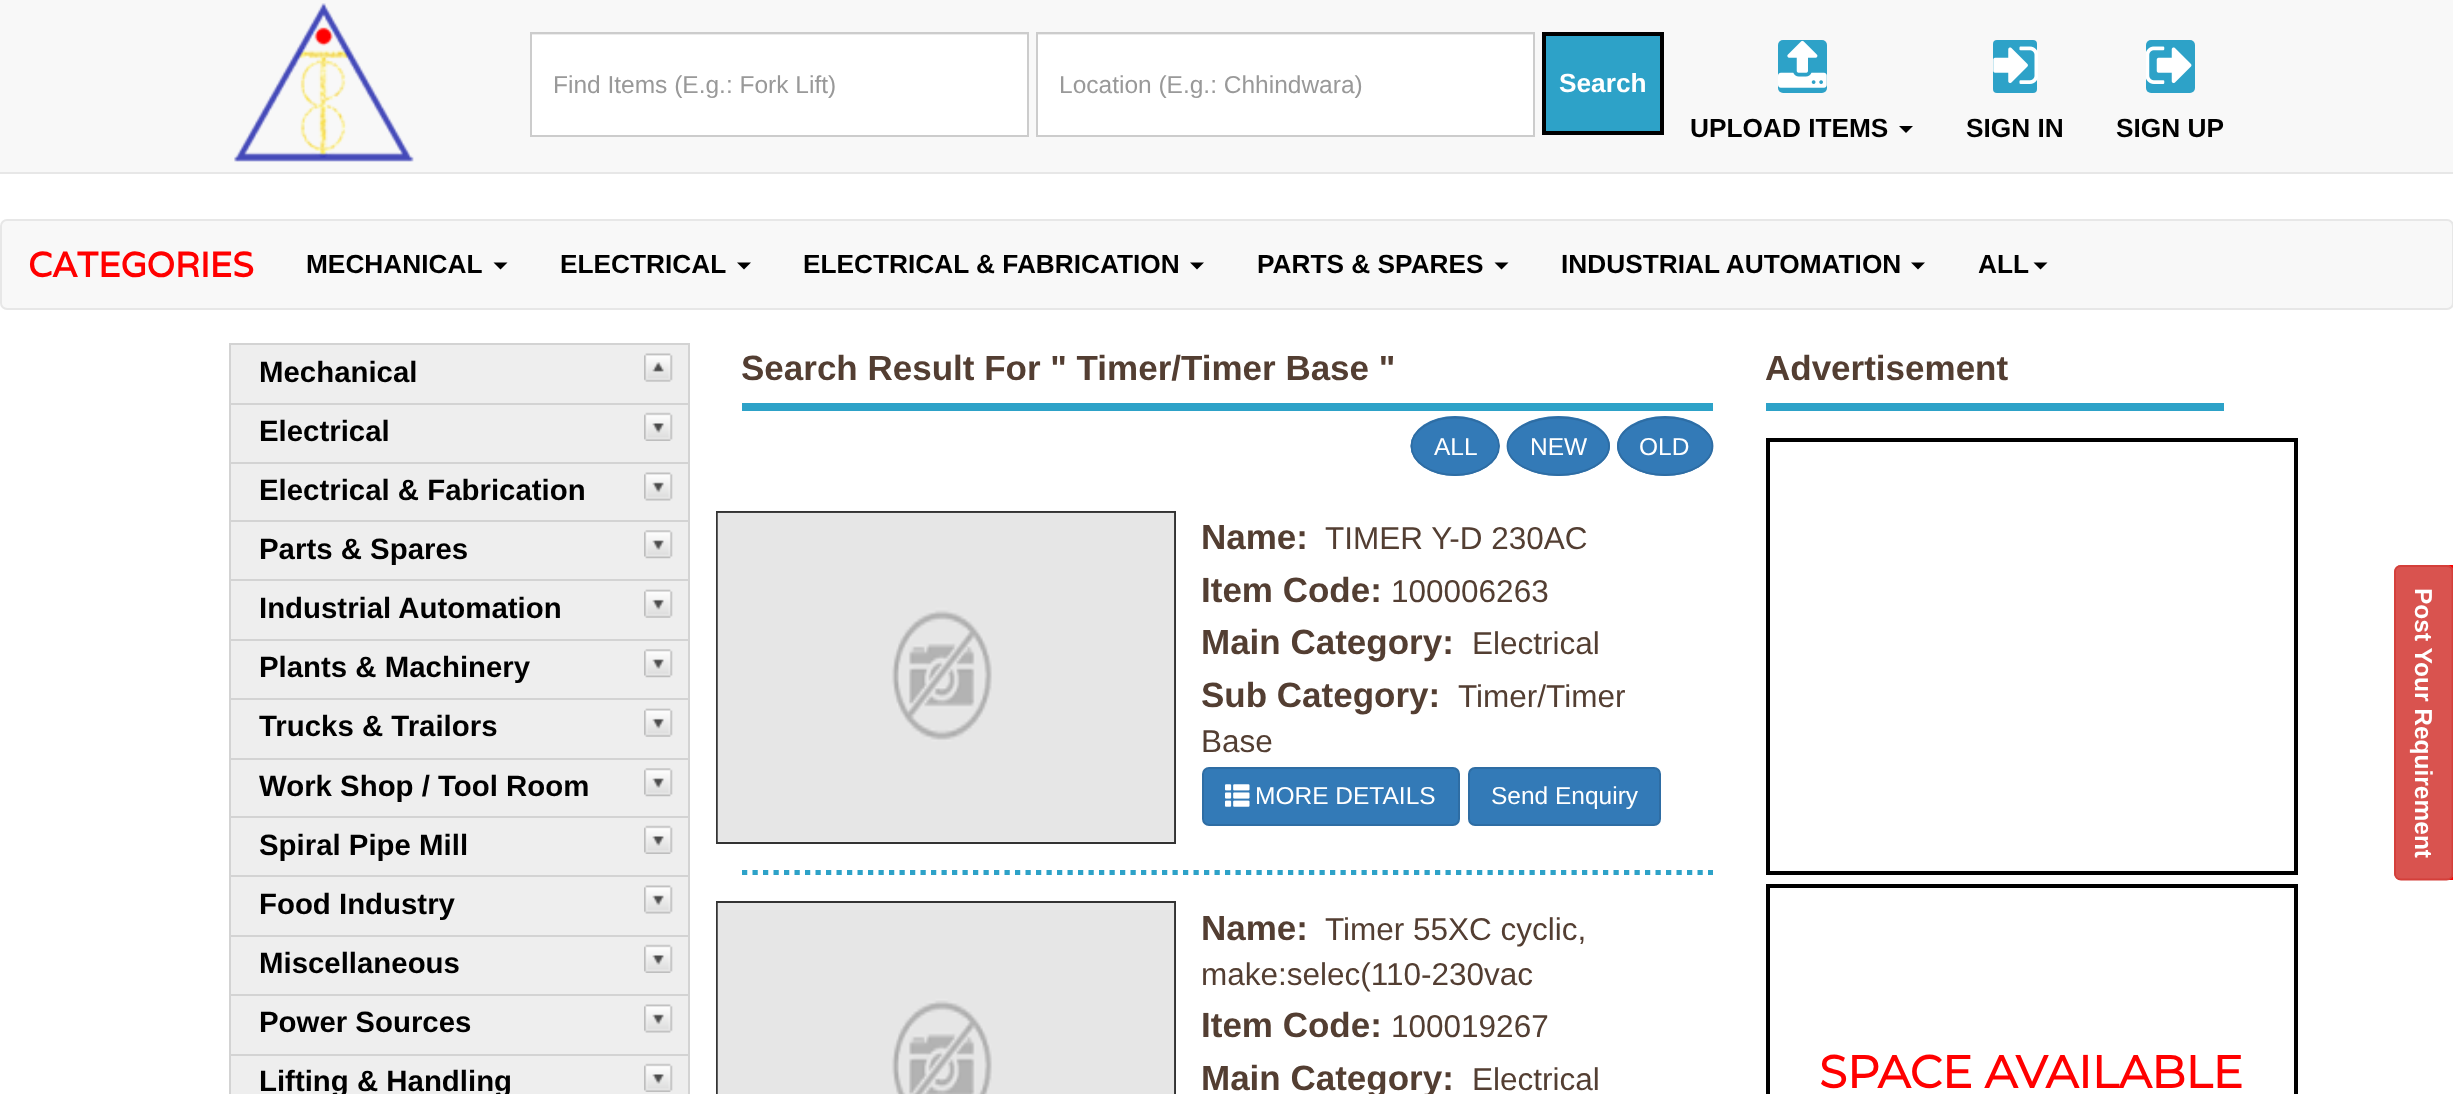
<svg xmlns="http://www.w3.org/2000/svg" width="2453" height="1094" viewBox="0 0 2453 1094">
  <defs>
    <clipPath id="clip1"><rect x="553" y="70" width="453" height="28"/></clipPath>
    <clipPath id="clip2"><rect x="1059" y="70" width="453" height="28"/></clipPath>
  </defs>
  <rect width="100%" height="100%" fill="rgb(255,255,255)"/>
  <rect x="0" y="0" width="2453" height="172" fill="rgb(248,248,248)"/>
  <rect x="0" y="172" width="2453" height="2" fill="rgb(231,231,231)"/>
  <image x="234" y="3" width="180" height="159" href="pic1.png"/>
  <rect x="532" y="35" width="495" height="100" fill="rgb(255,255,255)"/>
  <rect x="532" y="34" width="495" height="1" fill="rgb(236,236,236)"/>
  <rect x="531" y="33" width="497" height="103" fill="none" stroke="rgb(204,204,204)" stroke-width="2"/>
  <g clip-path="url(#clip1)">
    <text x="553" y="93" font-family="Liberation Sans" font-size="24.5" fill="rgb(153,153,153)">Find Items (E.g.: Fork Lift)</text>
  </g>
  <rect x="1038" y="35" width="495" height="100" fill="rgb(255,255,255)"/>
  <rect x="1038" y="34" width="495" height="1" fill="rgb(236,236,236)"/>
  <rect x="1037" y="33" width="497" height="103" fill="none" stroke="rgb(204,204,204)" stroke-width="2"/>
  <g clip-path="url(#clip2)">
    <text x="1059" y="93" font-family="Liberation Sans" font-size="24.5" fill="rgb(153,153,153)">Location (E.g.: Chhindwara)</text>
  </g>
  <rect x="1544" y="34" width="118" height="99" fill="rgb(45,162,200)" stroke="rgb(0,0,0)" stroke-width="4"/>
  <text x="1559" y="92" font-family="Liberation Sans" font-size="26.25" font-weight="bold" fill="rgb(255,255,255)">Search</text>
  <rect x="1778" y="40" width="49" height="53" rx="5" fill="rgb(45,162,200)"/>
  <image x="1778" y="40" width="49" height="48" href="pic2.png"/>
  <text x="1690" y="137" font-family="Liberation Sans" font-size="26.25" font-weight="bold" fill="rgb(0,0,0)">UPLOAD ITEMS</text>
  <path d="M1899 126H1913L1906 133Z" fill="rgb(0,0,0)"/>
  <rect x="1993" y="40" width="44" height="53" rx="4" fill="rgb(45,162,200)"/>
  <image x="1993" y="46" width="45" height="38" href="pic3.png"/>
  <text x="1966" y="137" font-family="Liberation Sans" font-size="26.25" font-weight="bold" fill="rgb(0,0,0)">SIGN IN</text>
  <rect x="2146" y="40" width="49" height="53" rx="5" fill="rgb(45,162,200)"/>
  <image x="2146" y="46" width="46" height="38" href="pic4.png"/>
  <text x="2116" y="137" font-family="Liberation Sans" font-size="26.25" font-weight="bold" fill="rgb(0,0,0)">SIGN UP</text>
  <rect x="1" y="220" width="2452" height="89" rx="6" fill="rgb(248,248,248)" stroke="rgb(231,231,231)" stroke-width="2"/>
  <text x="28" y="277" font-family="Varela" font-size="35" font-weight="bold" fill="rgb(255,0,0)">CATEGORIES</text>
  <text x="306" y="273" font-family="Liberation Sans" font-size="26.25" font-weight="bold" fill="rgb(0,0,0)">MECHANICAL</text>
  <path d="M493.5 262.5H507.5L500.5 269.5Z" fill="rgb(0,0,0)"/>
  <text x="560" y="273" font-family="Liberation Sans" font-size="26.25" font-weight="bold" fill="rgb(0,0,0)">ELECTRICAL</text>
  <path d="M737 262.5H751L744 269.5Z" fill="rgb(0,0,0)"/>
  <text x="803" y="273" font-family="Liberation Sans" font-size="26.25" font-weight="bold" fill="rgb(0,0,0)">ELECTRICAL &amp; FABRICATION</text>
  <path d="M1190 262.5H1204L1197 269.5Z" fill="rgb(0,0,0)"/>
  <text x="1257" y="273" font-family="Liberation Sans" font-size="26.25" font-weight="bold" fill="rgb(0,0,0)">PARTS &amp; SPARES</text>
  <path d="M1494.5 262.5H1508.5L1501.5 269.5Z" fill="rgb(0,0,0)"/>
  <text x="1561" y="273" font-family="Liberation Sans" font-size="26.25" font-weight="bold" fill="rgb(0,0,0)">INDUSTRIAL AUTOMATION</text>
  <path d="M1911 262.5H1925L1918 269.5Z" fill="rgb(0,0,0)"/>
  <text x="1978" y="273" font-family="Liberation Sans" font-size="26.25" font-weight="bold" fill="rgb(0,0,0)">ALL</text>
  <path d="M2033.5 262.5H2047.5L2040.5 269.5Z" fill="rgb(0,0,0)"/>
  <rect x="231" y="345" width="457" height="58" fill="rgb(238,238,238)"/>
  <image x="644" y="353" width="29" height="29" href="pic5.png"/>
  <rect x="229" y="343" width="461" height="2" fill="rgb(211,211,211)"/>
  <rect x="688" y="343" width="2" height="60" fill="rgb(211,211,211)"/>
  <rect x="229" y="343" width="2" height="60" fill="rgb(211,211,211)"/>
  <text x="259" y="382" font-family="Liberation Sans" font-size="29.4" font-weight="bold" fill="rgb(0,0,0)">Mechanical</text>
  <rect x="231" y="405" width="457" height="57" fill="rgb(238,238,238)"/>
  <image x="644" y="412" width="29" height="29" href="pic6.png"/>
  <rect x="229" y="403" width="461" height="2" fill="rgb(211,211,211)"/>
  <rect x="688" y="403" width="2" height="59" fill="rgb(211,211,211)"/>
  <rect x="229" y="403" width="2" height="59" fill="rgb(211,211,211)"/>
  <text x="259" y="441" font-family="Liberation Sans" font-size="29.4" font-weight="bold" fill="rgb(0,0,0)">Electrical</text>
  <rect x="231" y="464" width="457" height="56" fill="rgb(238,238,238)"/>
  <image x="644" y="472" width="29" height="29" href="pic7.png"/>
  <rect x="229" y="462" width="461" height="2" fill="rgb(211,211,211)"/>
  <rect x="688" y="462" width="2" height="58" fill="rgb(211,211,211)"/>
  <rect x="229" y="462" width="2" height="58" fill="rgb(211,211,211)"/>
  <text x="259" y="500" font-family="Liberation Sans" font-size="29.4" font-weight="bold" fill="rgb(0,0,0)">Electrical &amp; Fabrication</text>
  <rect x="231" y="522" width="457" height="57" fill="rgb(238,238,238)"/>
  <image x="644" y="530" width="29" height="29" href="pic8.png"/>
  <rect x="229" y="520" width="461" height="2" fill="rgb(211,211,211)"/>
  <rect x="688" y="520" width="2" height="59" fill="rgb(211,211,211)"/>
  <rect x="229" y="520" width="2" height="59" fill="rgb(211,211,211)"/>
  <text x="259" y="559" font-family="Liberation Sans" font-size="29.4" font-weight="bold" fill="rgb(0,0,0)">Parts &amp; Spares</text>
  <rect x="231" y="581" width="457" height="58" fill="rgb(238,238,238)"/>
  <image x="644" y="589" width="29" height="29" href="pic9.png"/>
  <rect x="229" y="579" width="461" height="2" fill="rgb(211,211,211)"/>
  <rect x="688" y="579" width="2" height="60" fill="rgb(211,211,211)"/>
  <rect x="229" y="579" width="2" height="60" fill="rgb(211,211,211)"/>
  <text x="259" y="618" font-family="Liberation Sans" font-size="29.4" font-weight="bold" fill="rgb(0,0,0)">Industrial Automation</text>
  <rect x="231" y="641" width="457" height="57" fill="rgb(238,238,238)"/>
  <image x="644" y="649" width="29" height="29" href="pic8.png"/>
  <rect x="229" y="639" width="461" height="2" fill="rgb(211,211,211)"/>
  <rect x="688" y="639" width="2" height="59" fill="rgb(211,211,211)"/>
  <rect x="229" y="639" width="2" height="59" fill="rgb(211,211,211)"/>
  <text x="259" y="677" font-family="Liberation Sans" font-size="29.4" font-weight="bold" fill="rgb(0,0,0)">Plants &amp; Machinery</text>
  <rect x="231" y="700" width="457" height="58" fill="rgb(238,238,238)"/>
  <image x="644" y="708" width="29" height="29" href="pic9.png"/>
  <rect x="229" y="698" width="461" height="2" fill="rgb(211,211,211)"/>
  <rect x="688" y="698" width="2" height="60" fill="rgb(211,211,211)"/>
  <rect x="229" y="698" width="2" height="60" fill="rgb(211,211,211)"/>
  <text x="259" y="736" font-family="Liberation Sans" font-size="29.4" font-weight="bold" fill="rgb(0,0,0)">Trucks &amp; Trailors</text>
  <rect x="231" y="760" width="457" height="56" fill="rgb(238,238,238)"/>
  <image x="644" y="768" width="29" height="29" href="pic8.png"/>
  <rect x="229" y="758" width="461" height="2" fill="rgb(211,211,211)"/>
  <rect x="688" y="758" width="2" height="58" fill="rgb(211,211,211)"/>
  <rect x="229" y="758" width="2" height="58" fill="rgb(211,211,211)"/>
  <text x="259" y="796" font-family="Liberation Sans" font-size="29.4" font-weight="bold" fill="rgb(0,0,0)">Work Shop / Tool Room</text>
  <rect x="231" y="818" width="457" height="57" fill="rgb(238,238,238)"/>
  <image x="644" y="825" width="29" height="29" href="pic6.png"/>
  <rect x="229" y="816" width="461" height="2" fill="rgb(211,211,211)"/>
  <rect x="688" y="816" width="2" height="59" fill="rgb(211,211,211)"/>
  <rect x="229" y="816" width="2" height="59" fill="rgb(211,211,211)"/>
  <text x="259" y="855" font-family="Liberation Sans" font-size="29.4" font-weight="bold" fill="rgb(0,0,0)">Spiral Pipe Mill</text>
  <rect x="231" y="877" width="457" height="58" fill="rgb(238,238,238)"/>
  <image x="644" y="885" width="29" height="29" href="pic7.png"/>
  <rect x="229" y="875" width="461" height="2" fill="rgb(211,211,211)"/>
  <rect x="688" y="875" width="2" height="60" fill="rgb(211,211,211)"/>
  <rect x="229" y="875" width="2" height="60" fill="rgb(211,211,211)"/>
  <text x="259" y="914" font-family="Liberation Sans" font-size="29.4" font-weight="bold" fill="rgb(0,0,0)">Food Industry</text>
  <rect x="231" y="937" width="457" height="57" fill="rgb(238,238,238)"/>
  <image x="644" y="944" width="29" height="29" href="pic6.png"/>
  <rect x="229" y="935" width="461" height="2" fill="rgb(211,211,211)"/>
  <rect x="688" y="935" width="2" height="59" fill="rgb(211,211,211)"/>
  <rect x="229" y="935" width="2" height="59" fill="rgb(211,211,211)"/>
  <text x="259" y="973" font-family="Liberation Sans" font-size="29.4" font-weight="bold" fill="rgb(0,0,0)">Miscellaneous</text>
  <rect x="231" y="996" width="457" height="58" fill="rgb(238,238,238)"/>
  <image x="644" y="1004" width="29" height="29" href="pic7.png"/>
  <rect x="229" y="994" width="461" height="2" fill="rgb(211,211,211)"/>
  <rect x="688" y="994" width="2" height="60" fill="rgb(211,211,211)"/>
  <rect x="229" y="994" width="2" height="60" fill="rgb(211,211,211)"/>
  <text x="259" y="1032" font-family="Liberation Sans" font-size="29.4" font-weight="bold" fill="rgb(0,0,0)">Power Sources</text>
  <rect x="231" y="1056" width="457" height="38" fill="rgb(238,238,238)"/>
  <image x="644" y="1063" width="29" height="29" href="pic6.png"/>
  <rect x="229" y="1054" width="461" height="2" fill="rgb(211,211,211)"/>
  <rect x="688" y="1054" width="2" height="40" fill="rgb(211,211,211)"/>
  <rect x="229" y="1054" width="2" height="40" fill="rgb(211,211,211)"/>
  <text x="259" y="1091" font-family="Liberation Sans" font-size="29.4" font-weight="bold" fill="rgb(0,0,0)">Lifting &amp; Handling</text>
  <rect x="742" y="403" width="971" height="8" fill="rgb(45,162,200)"/>
  <text x="741" y="380" font-family="Liberation Sans" font-size="35" font-weight="bold" fill="rgb(83,62,50)">Search Result For " Timer/Timer Base "</text>
  <ellipse cx="1455" cy="446" rx="44.5" ry="30" fill="rgb(51,122,183)"/>
  <path d="M1455 417.5C1479.5 417.5 1499 430.5 1499 446C1499 462 1479.5 475 1455 475C1431 475 1411.5 462 1411.5 446C1411.5 430.5 1431 417.5 1455 417.5Z" fill="none" stroke="rgb(46,109,164)" stroke-width="1.8"/>
  <text x="1434" y="455" font-family="Liberation Sans" font-size="24.5" fill="rgb(255,255,255)">ALL</text>
  <ellipse cx="1558.5" cy="446" rx="51.5" ry="30" fill="rgb(51,122,183)"/>
  <path d="M1558.5 417.5C1586.5 417.5 1609 430.5 1609 446C1609 462 1586.5 475 1558.5 475C1530.5 475 1507.5 462 1507.5 446C1507.5 430.5 1530.5 417.5 1558.5 417.5Z" fill="none" stroke="rgb(46,109,164)" stroke-width="1.8"/>
  <text x="1530" y="455" font-family="Liberation Sans" font-size="24.5" fill="rgb(255,255,255)">NEW</text>
  <ellipse cx="1665" cy="446" rx="48" ry="30" fill="rgb(51,122,183)"/>
  <path d="M1665 417.5C1691 417.5 1712.5 430.5 1712.5 446C1712.5 462 1691 475 1665 475C1639 475 1618 462 1618 446C1618 430.5 1639 417.5 1665 417.5Z" fill="none" stroke="rgb(46,109,164)" stroke-width="1.8"/>
  <text x="1639" y="455" font-family="Liberation Sans" font-size="24.5" fill="rgb(255,255,255)">OLD</text>
  <rect x="717" y="512" width="458" height="331" fill="none" stroke="rgb(51,51,51)" stroke-width="2"/>
  <image x="717" y="512" width="458" height="330" href="pic10.png"/>
  <text x="1201" y="549" font-family="Liberation Sans" font-size="35" font-weight="bold" fill="rgb(83,62,50)">Name:</text>
  <text x="1325" y="549" font-family="Liberation Sans" font-size="31.5" fill="rgb(83,62,50)">TIMER Y-D 230AC</text>
  <text x="1201" y="602" font-family="Liberation Sans" font-size="35" font-weight="bold" fill="rgb(83,62,50)">Item Code:</text>
  <text x="1391" y="602" font-family="Liberation Sans" font-size="31.5" fill="rgb(83,62,50)">100006263</text>
  <text x="1201" y="654" font-family="Liberation Sans" font-size="35" font-weight="bold" fill="rgb(83,62,50)">Main Category:</text>
  <text x="1472" y="654" font-family="Liberation Sans" font-size="31.5" fill="rgb(83,62,50)">Electrical</text>
  <text x="1201" y="707" font-family="Liberation Sans" font-size="35" font-weight="bold" fill="rgb(83,62,50)">Sub Category:</text>
  <g font-family="Liberation Sans" font-size="31.5" fill="rgb(83,62,50)">
    <text x="1458" y="707">Timer/Timer</text>
    <text x="1201" y="752">Base</text>
  </g>
  <rect x="1203" y="768" width="256" height="57" rx="6" fill="rgb(51,122,183)" stroke="rgb(46,109,164)" stroke-width="2"/>
  <image x="1225" y="784" width="25" height="23" href="pic11.png"/>
  <text x="1255" y="804" font-family="Liberation Sans" font-size="24.5" fill="rgb(255,255,255)">MORE DETAILS</text>
  <rect x="1469" y="768" width="191" height="57" rx="6" fill="rgb(51,122,183)" stroke="rgb(46,109,164)" stroke-width="2"/>
  <text x="1491" y="804" font-family="Liberation Sans" font-size="24.5" fill="rgb(255,255,255)">Send Enquiry</text>
  <path d="M742 872.5H1713" fill="none" stroke="rgb(45,162,200)" stroke-width="5.2" stroke-dasharray="5.25 5.25"/>
  <rect x="717" y="902" width="458" height="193" fill="none" stroke="rgb(51,51,51)" stroke-width="2"/>
  <image x="717" y="903" width="458" height="191" href="pic12.png"/>
  <text x="1201" y="940" font-family="Liberation Sans" font-size="35" font-weight="bold" fill="rgb(83,62,50)">Name:</text>
  <g font-family="Liberation Sans" font-size="31.5" fill="rgb(83,62,50)">
    <text x="1325" y="940">Timer 55XC cyclic,</text>
    <text x="1201" y="985">make:selec(110-230vac</text>
  </g>
  <text x="1201" y="1037" font-family="Liberation Sans" font-size="35" font-weight="bold" fill="rgb(83,62,50)">Item Code:</text>
  <text x="1391" y="1037" font-family="Liberation Sans" font-size="31.5" fill="rgb(83,62,50)">100019267</text>
  <text x="1201" y="1090" font-family="Liberation Sans" font-size="35" font-weight="bold" fill="rgb(83,62,50)">Main Category:</text>
  <text x="1472" y="1090" font-family="Liberation Sans" font-size="31.5" fill="rgb(83,62,50)">Electrical</text>
  <rect x="1766" y="403" width="458" height="8" fill="rgb(45,162,200)"/>
  <text x="1765" y="380" font-family="Liberation Sans" font-size="35" font-weight="bold" fill="rgb(83,62,50)">Advertisement</text>
  <rect x="1768" y="440" width="528" height="433" fill="none" stroke="rgb(0,0,0)" stroke-width="4"/>
  <rect x="1768" y="886" width="528" height="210" fill="none" stroke="rgb(0,0,0)" stroke-width="4"/>
  <text x="1819" y="1088" font-family="Montserrat" font-size="45.5" font-weight="bold" fill="rgb(255,0,0)">SPACE AVAILABLE</text>
  <rect x="2447" y="565" width="6" height="315" fill="rgb(255,0,0)"/>
  <path d="M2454 572V873C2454 877 2450 880 2447 880H2401C2397 880 2394 877 2394 873V572C2394 568 2397 565 2401 565H2447C2450 565 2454 568 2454 572Z" fill="rgb(217,83,79)"/>
  <path d="M2452.5 572V873.5C2452.5 877 2450 879.5 2446.5 879.5H2401C2397.5 879.5 2395 877 2395 873.5V572C2395 568.5 2397.5 566 2401 566H2446.5C2450 566 2452.5 568.5 2452.5 572Z" fill="none" stroke="rgb(212,63,58)" stroke-width="1.8"/>
  <text x="2415" y="588" transform="rotate(90 2415 588)" font-family="Liberation Sans" font-size="24.5" font-weight="bold" fill="rgb(255,255,255)">Post Your Requirement</text>
</svg>
